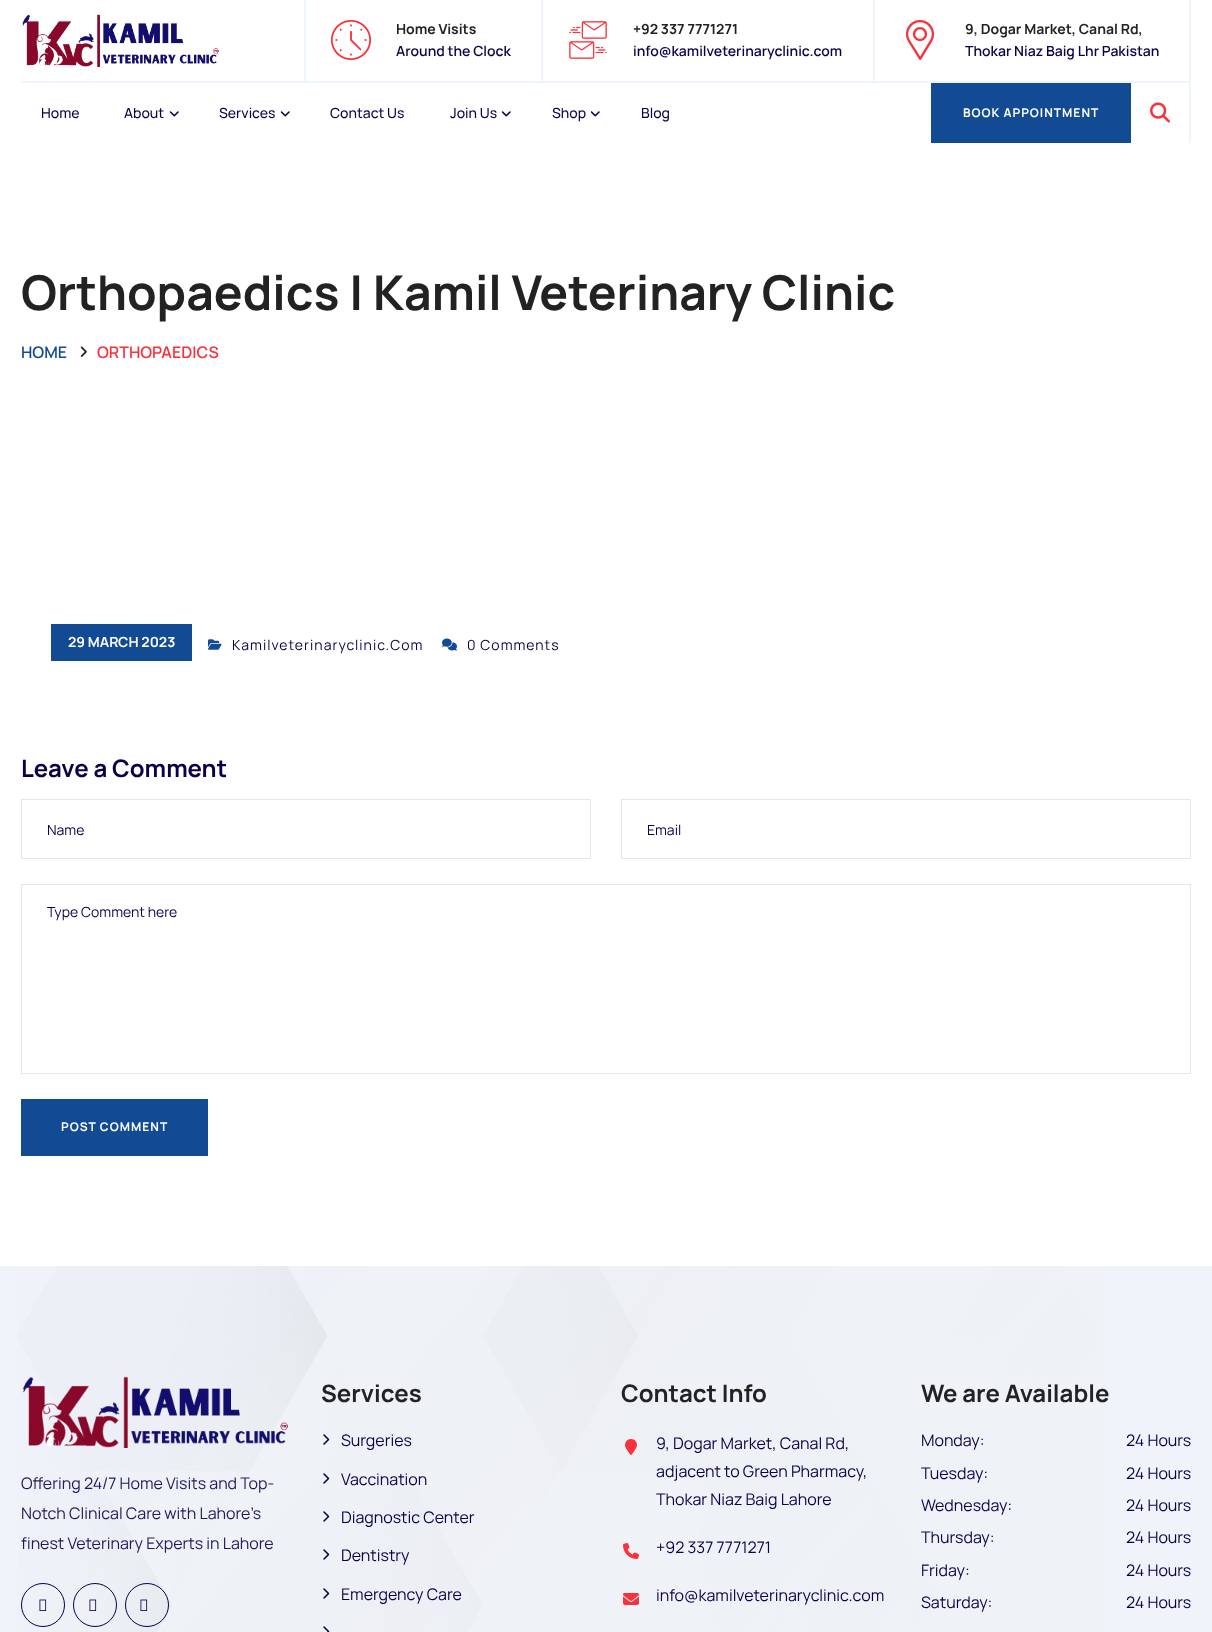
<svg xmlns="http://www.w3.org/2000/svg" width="1212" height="1632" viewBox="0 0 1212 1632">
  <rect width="100%" height="100%" fill="rgb(255,255,255)"/>
  <image x="22" y="14" width="197" height="53" href="pic1.png"/>
  <rect x="304" y="0" width="2" height="81" fill="rgb(238,245,255)"/>
  <image x="331" y="20" width="40" height="40" href="pic2.png"/>
  <text x="396" y="34" font-family="Manrope" font-size="14" font-weight="bold" fill="rgb(34,34,34)">Home Visits</text>
  <text x="396" y="56" font-family="Manrope" font-size="14" font-weight="600" fill="rgb(11,0,73)">Around the Clock</text>
  <rect x="541" y="0" width="2" height="81" fill="rgb(238,245,255)"/>
  <image x="569" y="21" width="38" height="38" href="pic3.png"/>
  <text x="633" y="34" font-family="Manrope" font-size="14" font-weight="bold" fill="rgb(34,34,34)">+92 337 7771271</text>
  <text x="633" y="56" font-family="Manrope" font-size="14" font-weight="600" fill="rgb(11,0,73)">info@kamilveterinaryclinic.com</text>
  <rect x="1189" y="0" width="2" height="81" fill="rgb(238,245,255)"/>
  <rect x="873" y="0" width="2" height="81" fill="rgb(238,245,255)"/>
  <image x="906" y="20" width="28" height="40" href="pic4.png"/>
  <text x="965" y="34" font-family="Manrope" font-size="14" font-weight="bold" fill="rgb(34,34,34)">9, Dogar Market, Canal Rd,</text>
  <text x="965" y="56" font-family="Manrope" font-size="14" font-weight="600" fill="rgb(11,0,73)">Thokar Niaz Baig Lhr Pakistan</text>
  <rect x="21" y="81" width="1170" height="2" fill="rgb(238,245,255)"/>
  <g font-family="Manrope" font-size="14" font-weight="500" fill="rgb(11,0,73)">
    <text x="41" y="118">Home</text>
    <text x="124" y="118">About</text>
  </g>
  <image x="169" y="111" width="10" height="6" href="pic5.png"/>
  <text x="219" y="118" font-family="Manrope" font-size="14" font-weight="500" fill="rgb(11,0,73)">Services</text>
  <image x="280" y="111" width="10" height="6" href="pic5.png"/>
  <g font-family="Manrope" font-size="14" font-weight="500" fill="rgb(11,0,73)">
    <text x="330" y="118">Contact Us</text>
    <text x="450" y="118">Join Us</text>
  </g>
  <image x="501" y="111" width="10" height="6" href="pic5.png"/>
  <text x="552" y="118" font-family="Manrope" font-size="14" font-weight="500" fill="rgb(11,0,73)">Shop</text>
  <image x="590" y="111" width="10" height="6" href="pic5.png"/>
  <text x="641" y="118" font-family="Manrope" font-size="14" font-weight="500" fill="rgb(11,0,73)">Blog</text>
  <rect x="931" y="83" width="200" height="60" fill="rgb(18,74,148)"/>
  <text x="963" y="117" font-family="Manrope" font-size="12" font-weight="bold" letter-spacing="1" fill="rgb(255,255,255)">BOOK APPOINTMENT</text>
  <rect x="1189" y="83" width="2" height="60" fill="rgb(238,245,255)"/>
  <image x="1150" y="102" width="20" height="21" href="pic6.png"/>
  <text x="21" y="310" font-family="Manrope" font-size="48" font-weight="bold" fill="rgb(34,34,34)">Orthopaedics | Kamil Veterinary Clinic</text>
  <text x="21" y="358" font-family="Manrope" font-size="16" font-weight="600" fill="rgb(18,74,148)">HOME</text>
  <image x="80" y="346" width="7" height="11" href="pic7.png"/>
  <text x="97" y="358" font-family="Manrope" font-size="16" font-weight="600" fill="rgb(249,49,59)">ORTHOPAEDICS</text>
  <rect x="51" y="624" width="141" height="37" fill="rgb(18,74,148)"/>
  <text x="68" y="647" font-family="Manrope" font-size="14" font-weight="bold" fill="rgb(255,255,255)">29 MARCH 2023</text>
  <image x="208" y="639" width="14" height="11" href="pic8.png"/>
  <text x="232" y="650" font-family="Manrope" font-size="14" letter-spacing="1" fill="rgb(11,0,73)">Kamilveterinaryclinic.Com</text>
  <image x="442" y="638" width="15" height="13" href="pic9.png"/>
  <text x="467" y="650" font-family="Manrope" font-size="14" letter-spacing="1" fill="rgb(11,0,73)">0 Comments</text>
  <text x="21" y="777" font-family="Manrope" font-size="24" font-weight="bold" fill="rgb(11,0,73)">Leave a Comment</text>
  <rect x="21.5" y="799.5" width="569" height="59" fill="none" stroke="rgb(230,230,230)"/>
  <text x="47" y="835" font-family="Manrope" font-size="14" fill="rgb(11,0,73)">Name</text>
  <rect x="621.5" y="799.5" width="569" height="59" fill="none" stroke="rgb(230,230,230)"/>
  <text x="647" y="835" font-family="Manrope" font-size="14" fill="rgb(11,0,73)">Email</text>
  <rect x="21.5" y="884.5" width="1169" height="189" fill="none" stroke="rgb(230,230,230)"/>
  <text x="47" y="917" font-family="Manrope" font-size="14" fill="rgb(11,0,73)">Type Comment here</text>
  <rect x="21" y="1099" width="187" height="57" fill="rgb(18,74,148)"/>
  <text x="61" y="1131" font-family="Manrope" font-size="12" font-weight="bold" letter-spacing="1" fill="rgb(255,255,255)">POST COMMENT</text>
  <rect x="0" y="1266" width="1212" height="366" fill="rgb(239,243,250)"/>
  <image x="17" y="1266" width="1087" height="366" href="pic10.png"/>
  <image x="22" y="1376" width="266" height="72" href="pic11.png"/>
  <g font-family="Manrope" font-size="16" fill="rgb(34,24,90)">
    <text>
      <tspan x="21" y="1489">Offering 24/7 Home Visits and Top-</tspan>
      <tspan x="21" y="1519">Notch Clinical Care with Lahore's</tspan>
      <tspan x="21" y="1549">finest Veterinary Experts in Lahore</tspan>
    </text>
  </g>
  <circle cx="43" cy="1605" r="21.5" fill="none" stroke="rgb(11,0,73)"/>
  <image x="39" y="1599" width="8" height="12" href="pic12.png"/>
  <circle cx="95" cy="1605" r="21.5" fill="none" stroke="rgb(11,0,73)"/>
  <image x="89" y="1599" width="8" height="12" href="pic13.png"/>
  <circle cx="147" cy="1605" r="21.5" fill="none" stroke="rgb(11,0,73)"/>
  <image x="140" y="1599" width="8" height="12" href="pic14.png"/>
  <text x="321" y="1402" font-family="Manrope" font-size="24" font-weight="bold" fill="rgb(34,34,34)">Services</text>
  <image x="323" y="1434" width="7" height="11" href="pic15.png"/>
  <text x="341" y="1446" font-family="Manrope" font-size="16" fill="rgb(11,0,73)">Surgeries</text>
  <image x="323" y="1473" width="7" height="11" href="pic16.png"/>
  <text x="341" y="1485" font-family="Manrope" font-size="16" fill="rgb(11,0,73)">Vaccination</text>
  <image x="323" y="1511" width="7" height="11" href="pic17.png"/>
  <text x="341" y="1523" font-family="Manrope" font-size="16" fill="rgb(11,0,73)">Diagnostic Center</text>
  <image x="323" y="1549" width="7" height="11" href="pic17.png"/>
  <text x="341" y="1561" font-family="Manrope" font-size="16" fill="rgb(11,0,73)">Dentistry</text>
  <image x="323" y="1588" width="7" height="11" href="pic18.png"/>
  <text x="341" y="1600" font-family="Manrope" font-size="16" fill="rgb(11,0,73)">Emergency Care</text>
  <image x="323" y="1626" width="7" height="6" href="pic19.png"/>
  <text x="621" y="1402" font-family="Manrope" font-size="24" font-weight="bold" fill="rgb(34,34,34)">Contact Info</text>
  <image x="625" y="1439" width="12" height="16" href="pic20.png"/>
  <g font-family="Manrope" font-size="16" fill="rgb(11,0,73)">
    <text>
      <tspan x="656" y="1449">9, Dogar Market, Canal Rd,</tspan>
      <tspan x="656" y="1477">adjacent to Green Pharmacy,</tspan>
      <tspan x="656" y="1505">Thokar Niaz Baig Lahore</tspan>
    </text>
  </g>
  <image x="623" y="1543" width="16" height="16" href="pic21.png"/>
  <text x="656" y="1553" font-family="Manrope" font-size="16" fill="rgb(11,0,73)">+92 337 7771271</text>
  <image x="623" y="1593" width="16" height="12" href="pic22.png"/>
  <text x="656" y="1601" font-family="Manrope" font-size="16" fill="rgb(11,0,73)">info@kamilveterinaryclinic.com</text>
  <text x="921" y="1402" font-family="Manrope" font-size="24" font-weight="bold" fill="rgb(34,34,34)">We are Available</text>
  <g font-family="Manrope" font-size="16" fill="rgb(11,0,73)">
    <text x="921" y="1446">Monday:</text>
    <text x="1126" y="1446">24 Hours</text>
    <text x="921" y="1479">Tuesday:</text>
    <text x="1126" y="1479">24 Hours</text>
    <text x="921" y="1511">Wednesday:</text>
    <text x="1126" y="1511">24 Hours</text>
    <text x="921" y="1543">Thursday:</text>
    <text x="1126" y="1543">24 Hours</text>
    <text x="921" y="1576">Friday:</text>
    <text x="1126" y="1576">24 Hours</text>
    <text x="921" y="1608">Saturday:</text>
    <text x="1126" y="1608">24 Hours</text>
  </g>
</svg>
